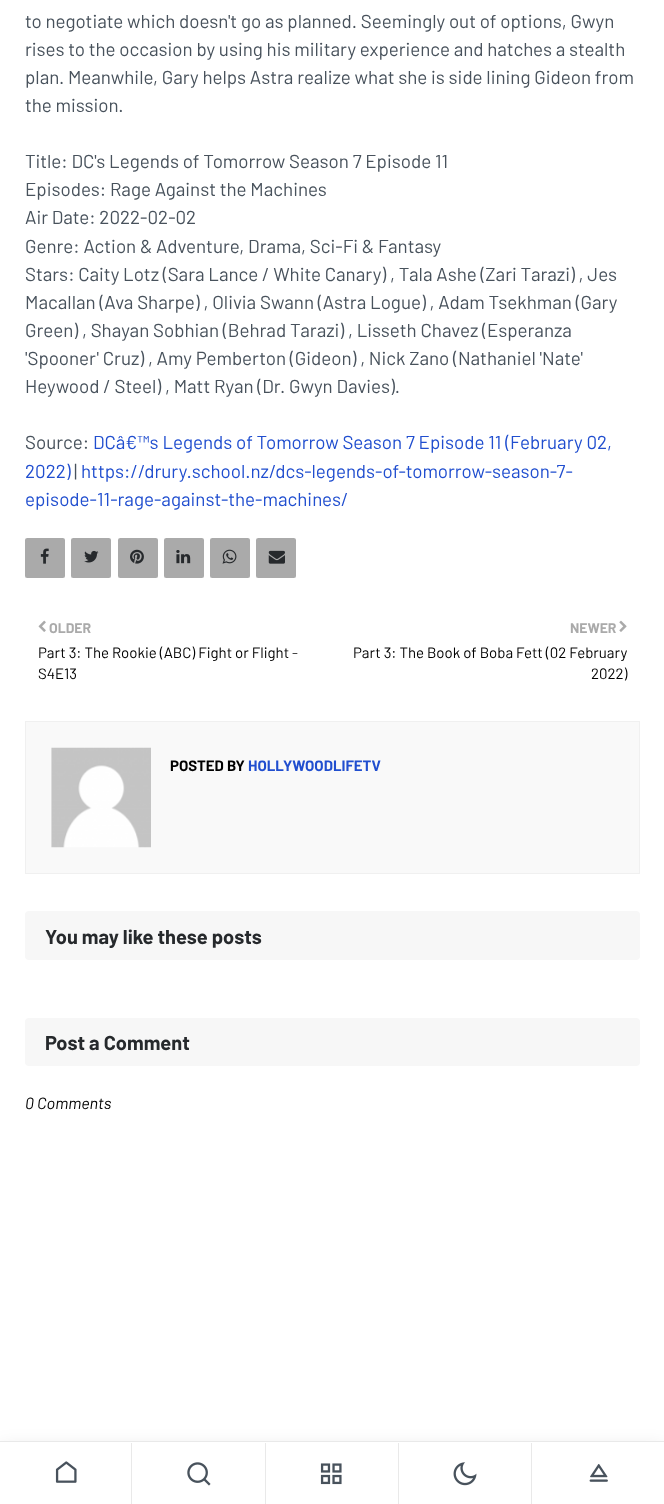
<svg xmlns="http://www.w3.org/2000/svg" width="664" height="1504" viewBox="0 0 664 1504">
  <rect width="100%" height="100%" fill="rgb(255,255,255)"/>
  <rect x="256" y="538" width="40" height="40" fill="rgb(242,242,242)"/>
  <rect x="210" y="538" width="40" height="40" fill="rgb(242,242,242)"/>
  <rect x="164" y="538" width="40" height="40" fill="rgb(242,242,242)"/>
  <rect x="118" y="538" width="40" height="40" fill="rgb(242,242,242)"/>
  <rect x="71" y="538" width="40" height="40" fill="rgb(242,242,242)"/>
  <rect x="25" y="538" width="40" height="40" fill="rgb(242,242,242)"/>
  <g font-family="Barlow" font-size="18.75" fill="rgb(72,82,92)">
    <text>
      <tspan x="25" y="28">to negotiate which doesn't go as planned. Seemingly out of options, Gwyn</tspan>
      <tspan x="25" y="56">rises to the occasion by using his military experience and hatches a stealth</tspan>
      <tspan x="25" y="84">plan. Meanwhile, Gary helps Astra realize what she is side lining Gideon from</tspan>
      <tspan x="25" y="112">the mission.</tspan>
    </text>
    <text>
      <tspan x="25" y="168">Title: DC's Legends of Tomorrow Season 7 Episode 11</tspan>
      <tspan x="25" y="196">Episodes: Rage Against the Machines</tspan>
      <tspan x="25" y="224">Air Date: 2022-02-02</tspan>
      <tspan x="25" y="253">Genre: Action &amp; Adventure, Drama, Sci-Fi &amp; Fantasy</tspan>
      <tspan x="25" y="281">Stars: Caity Lotz (Sara Lance / White Canary) , Tala Ashe (Zari Tarazi) , Jes</tspan>
      <tspan x="25" y="309">Macallan (Ava Sharpe) , Olivia Swann (Astra Logue) , Adam Tsekhman (Gary</tspan>
      <tspan x="25" y="337">Green) , Shayan Sobhian (Behrad Tarazi) , Lisseth Chavez (Esperanza</tspan>
      <tspan x="25" y="365">'Spooner' Cruz) , Amy Pemberton (Gideon) , Nick Zano (Nathaniel 'Nate'</tspan>
      <tspan x="25" y="393">Heywood / Steel) , Matt Ryan (Dr. Gwyn Davies).</tspan>
    </text>
    <text x="25" y="449">Source:</text>
  </g>
  <g font-family="Barlow" font-size="18.75" fill="rgb(32,78,207)">
    <text x="93" y="449">DCâ€™s Legends of Tomorrow Season 7 Episode 11 (February 02,</text>
    <text x="25" y="478">2022)</text>
  </g>
  <text x="74" y="478" font-family="Barlow" font-size="18.75" fill="rgb(72,82,92)">|</text>
  <g font-family="Barlow" font-size="18.75" fill="rgb(32,78,207)">
    <text x="81" y="478">https://drury.school.nz/dcs-legends-of-tomorrow-season-7-</text>
    <text x="25" y="506">episode-11-rage-against-the-machines/</text>
  </g>
  <rect x="25" y="538" width="40" height="40" rx="2.5" fill="rgb(170,170,170)"/>
  <image x="40" y="548" width="9" height="16" href="pic1.png"/>
  <rect x="71" y="538" width="40" height="40" rx="2.5" fill="rgb(170,170,170)"/>
  <image x="84" y="550" width="15" height="13" href="pic2.png"/>
  <rect x="118" y="538" width="40" height="40" rx="2.5" fill="rgb(170,170,170)"/>
  <image x="130" y="549" width="14" height="15" href="pic3.png"/>
  <rect x="164" y="538" width="40" height="40" rx="2.5" fill="rgb(170,170,170)"/>
  <image x="176" y="550" width="15" height="14" href="pic4.png"/>
  <rect x="210" y="538" width="40" height="40" rx="2.5" fill="rgb(170,170,170)"/>
  <image x="222" y="549" width="15" height="15" href="pic5.png"/>
  <rect x="256" y="538" width="40" height="40" rx="2.5" fill="rgb(170,170,170)"/>
  <image x="268" y="550" width="17" height="14" href="pic6.png"/>
  <image x="38" y="620" width="8" height="12" href="pic7.png"/>
  <text x="49" y="633" font-family="Barlow" font-size="14" font-weight="bold" fill="rgb(170,170,170)">OLDER</text>
  <g font-family="Barlow" font-size="15" fill="rgb(0,0,0)">
    <text>
      <tspan x="38" y="658">Part 3: The Rookie (ABC) Fight or Flight -</tspan>
      <tspan x="38" y="679">S4E13</tspan>
    </text>
  </g>
  <text x="570" y="633" font-family="Barlow" font-size="14" font-weight="bold" fill="rgb(170,170,170)">NEWER</text>
  <image x="619" y="620" width="8" height="12" href="pic8.png"/>
  <g font-family="Barlow" font-size="15" fill="rgb(0,0,0)">
    <text x="353" y="658">Part 3: The Book of Boba Fett (02 February</text>
    <text x="591" y="679">2022)</text>
  </g>
  <rect x="25.5" y="721.5" width="614" height="152" fill="rgb(249,249,249)" stroke="rgb(240,240,240)"/>
  <image x="51" y="747" width="100" height="101" href="pic9.png"/>
  <text x="170" y="771" font-family="Barlow" font-size="15" font-weight="bold" fill="rgb(0,0,0)">POSTED BY</text>
  <text x="248" y="771" font-family="Barlow" font-size="15" font-weight="bold" fill="rgb(32,78,207)">HOLLYWOODLIFETV</text>
  <rect x="25" y="911" width="615" height="49" rx="4" fill="rgb(247,247,247)"/>
  <text x="45" y="944" font-family="Barlow" font-size="20" font-weight="bold" fill="rgb(38,41,44)">You may like these posts</text>
  <rect x="25" y="1018" width="615" height="48" rx="4" fill="rgb(247,247,247)"/>
  <text x="45" y="1050" font-family="Barlow" font-size="20" font-weight="bold" fill="rgb(38,41,44)">Post a Comment</text>
  <text x="25" y="1109" font-family="Barlow" font-size="16.25" font-style="italic" fill="rgb(0,0,0)">0 Comments</text>
  <rect x="0" y="1448" width="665" height="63" fill="rgba(0,0,0,0.12)" filter="blur(9.5px)"/>
  <rect x="0" y="1442" width="664" height="62" fill="rgb(255,255,255)"/>
  <rect x="0" y="1441" width="664" height="1" fill="rgb(233,233,233)"/>
  <rect x="131" y="1443" width="1" height="61" fill="rgb(233,233,233)"/>
  <image x="55" y="1461" width="22" height="22" href="pic10.png"/>
  <rect x="265" y="1443" width="1" height="61" fill="rgb(233,233,233)"/>
  <image x="187" y="1462" width="24" height="24" href="pic11.png"/>
  <rect x="398" y="1443" width="1" height="61" fill="rgb(233,233,233)"/>
  <image x="320" y="1463" width="22" height="22" href="pic12.png"/>
  <rect x="531" y="1443" width="1" height="61" fill="rgb(233,233,233)"/>
  <image x="453" y="1462" width="24" height="24" href="pic13.png"/>
  <image x="589" y="1464" width="19" height="18" href="pic14.png"/>
</svg>
